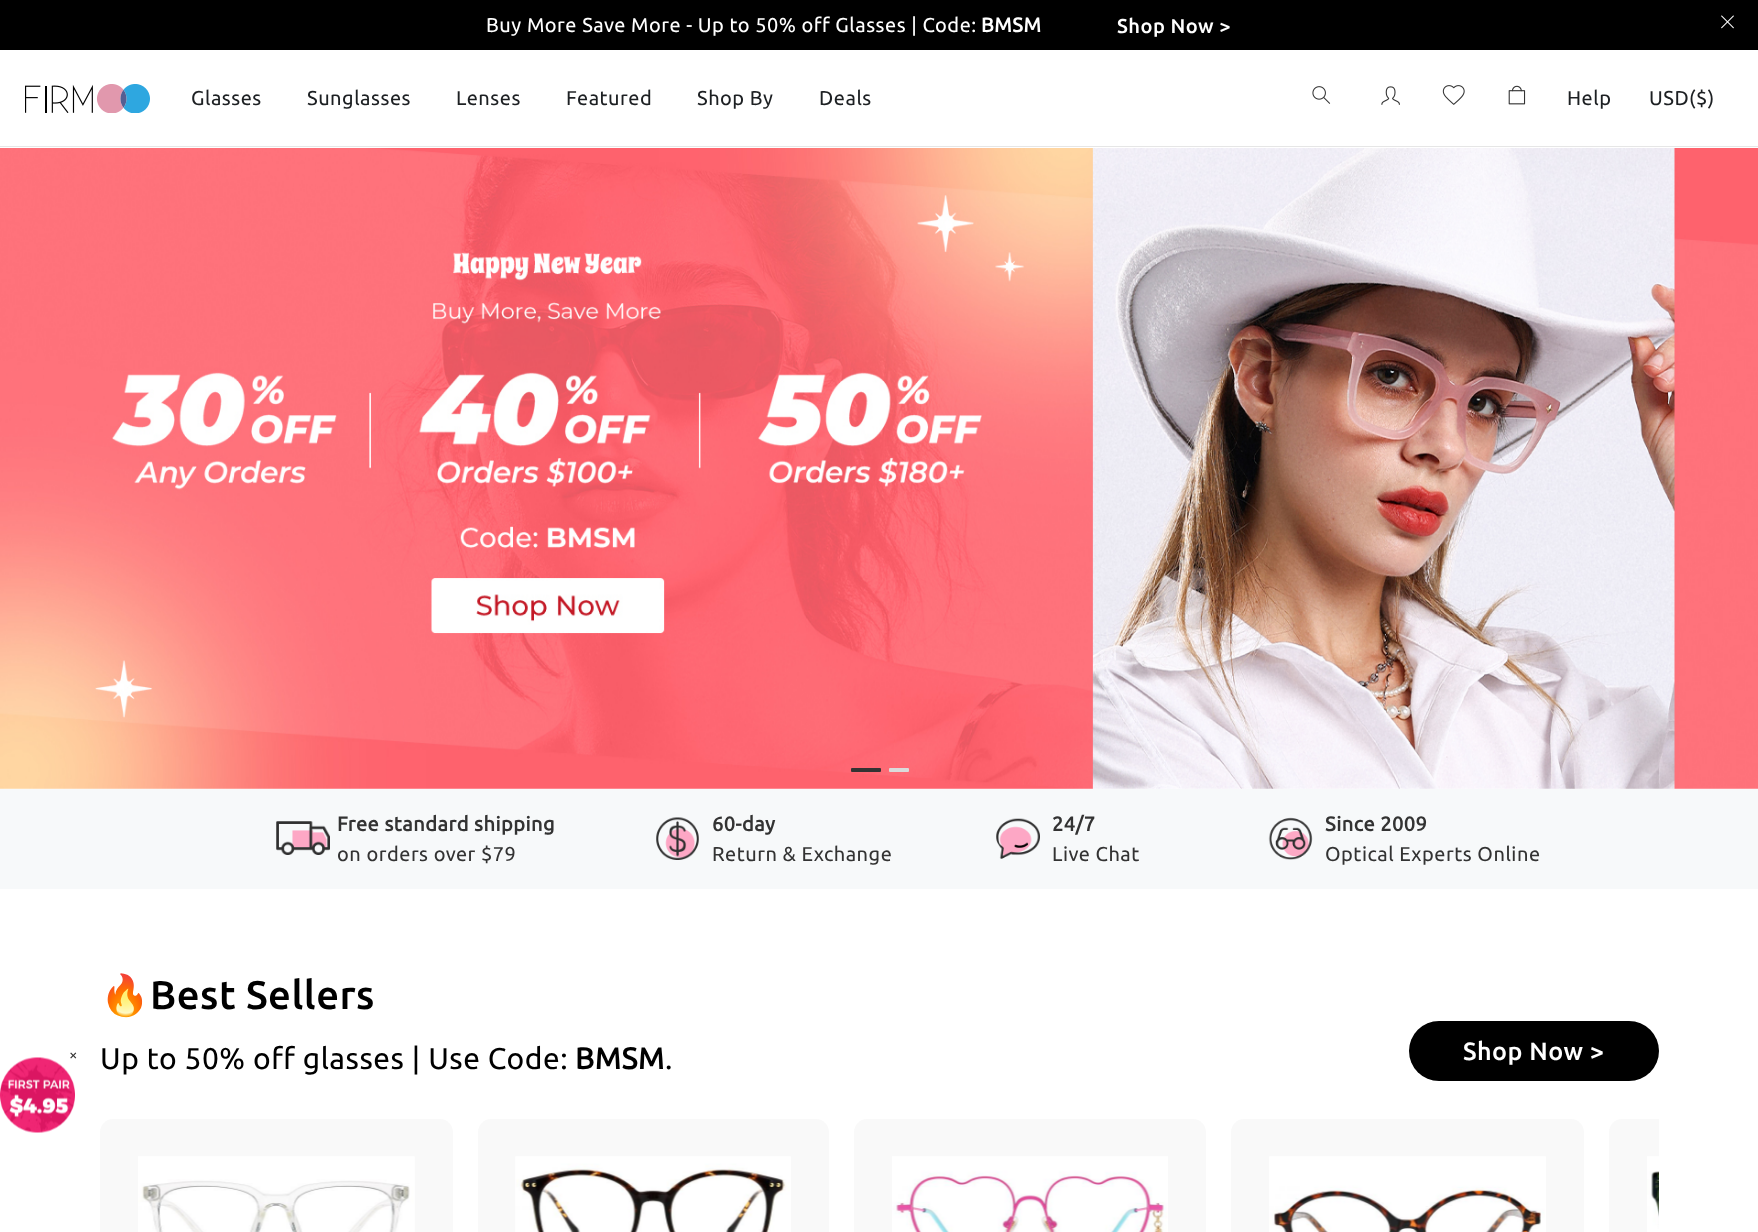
<svg xmlns="http://www.w3.org/2000/svg" width="1758" height="1232" viewBox="0 0 1758 1232">
  <rect width="100%" height="100%" fill="rgb(255,255,255)"/>
  <rect x="0" y="0" width="1758" height="50" fill="rgb(0,0,0)"/>
  <text x="486" y="32" font-family="Ubuntu" font-size="20" letter-spacing="0.5" fill="rgb(255,255,255)">Buy More Save More - Up to 50% off Glasses | Code:</text>
  <text x="981" y="32" font-family="Ubuntu" font-size="20" font-weight="bold" letter-spacing="0.5" fill="rgb(255,255,255)">BMSM</text>
  <text x="1117" y="33" font-family="Ubuntu" font-size="20" font-weight="500" letter-spacing="0.5" fill="rgb(255,255,255)">Shop Now &gt;</text>
  <image x="1721" y="15" width="13" height="14" href="pic1.png"/>
  <rect x="0" y="146" width="1758" height="1" fill="rgb(230,230,230)"/>
  <image x="25" y="84" width="125" height="29" href="pic2.png"/>
  <g font-family="Ubuntu" font-size="20" letter-spacing="0.5" fill="rgb(29,32,35)">
    <text x="191" y="105">Glasses</text>
    <text x="307" y="105">Sunglasses</text>
    <text x="456" y="105">Lenses</text>
    <text x="566" y="105">Featured</text>
    <text x="697" y="105">Shop By</text>
    <text x="819" y="105">Deals</text>
  </g>
  <image x="1312" y="86" width="19" height="18" href="pic3.png"/>
  <image x="1381" y="86" width="19" height="19" href="pic4.png"/>
  <image x="1442" y="85" width="23" height="20" href="pic5.png"/>
  <image x="1508" y="85" width="18" height="20" href="pic6.png"/>
  <g font-family="Ubuntu" font-size="20" letter-spacing="0.5" fill="rgb(29,32,35)">
    <text x="1567" y="105">Help</text>
    <text x="1649" y="105">USD($)</text>
  </g>
  <image x="0" y="1057" width="75" height="76" href="pic7.png"/>
  <text x="69" y="1060" font-family="Ubuntu" font-size="15" letter-spacing="0.5" fill="rgb(51,51,51)">×</text>
  <image x="0" y="148" width="1758" height="641" href="pic8.png"/>
  <rect x="851" y="768" width="30" height="4" rx="1" fill="rgb(51,51,51)"/>
  <rect x="889" y="768" width="20" height="4" rx="1" fill="rgb(219,219,219)"/>
  <rect x="0" y="789" width="1758" height="100" fill="rgb(247,249,250)"/>
  <image x="276" y="821" width="54" height="34" href="pic9.png"/>
  <text x="337" y="831" font-family="Ubuntu" font-size="20" font-weight="bold" letter-spacing="0.5" fill="rgb(51,51,51)">Free standard shipping</text>
  <text x="337" y="861" font-family="Ubuntu" font-size="20" letter-spacing="0.5" fill="rgb(51,51,51)">on orders over $79</text>
  <image x="656" y="817" width="43" height="43" href="pic10.png"/>
  <text x="712" y="831" font-family="Ubuntu" font-size="20" font-weight="bold" letter-spacing="0.5" fill="rgb(51,51,51)">60-day</text>
  <text x="712" y="861" font-family="Ubuntu" font-size="20" letter-spacing="0.5" fill="rgb(51,51,51)">Return &amp; Exchange</text>
  <image x="996" y="818" width="44" height="41" href="pic11.png"/>
  <text x="1052" y="831" font-family="Ubuntu" font-size="20" font-weight="bold" letter-spacing="0.5" fill="rgb(51,51,51)">24/7</text>
  <text x="1052" y="861" font-family="Ubuntu" font-size="20" letter-spacing="0.5" fill="rgb(51,51,51)">Live Chat</text>
  <image x="1268" y="817" width="45" height="43" href="pic12.png"/>
  <text x="1325" y="831" font-family="Ubuntu" font-size="20" font-weight="bold" letter-spacing="0.5" fill="rgb(51,51,51)">Since 2009</text>
  <text x="1325" y="861" font-family="Ubuntu" font-size="20" letter-spacing="0.5" fill="rgb(51,51,51)">Optical Experts Online</text>
  <text x="100" y="1009" font-family="Noto Color Emoji" font-size="40" letter-spacing="0.5" fill="rgb(0,0,0)">🔥</text>
  <text x="150" y="1009" font-family="Ubuntu" font-size="40" font-weight="500" letter-spacing="0.5" fill="rgb(0,0,0)">Best Sellers</text>
  <text x="100" y="1069" font-family="Ubuntu" font-size="30" letter-spacing="0.5" fill="rgb(0,0,0)">Up to 50% off glasses | Use Code:</text>
  <text x="575" y="1069" font-family="Ubuntu" font-size="30" font-weight="bold" letter-spacing="0.5" fill="rgb(0,0,0)">BMSM</text>
  <text x="665" y="1069" font-family="Ubuntu" font-size="30" letter-spacing="0.5" fill="rgb(0,0,0)">.</text>
  <rect x="1409" y="1021" width="250" height="60" rx="30" fill="rgb(0,0,0)"/>
  <text x="1463" y="1060" font-family="Ubuntu" font-size="25" font-weight="500" letter-spacing="0.5" fill="rgb(255,255,255)">Shop Now &gt;</text>
  <path d="M113 1119H440C447 1119 453 1125 453 1132V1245H100V1132C100 1125 106 1119 113 1119Z" fill="rgb(249,249,249)"/>
  <image x="138" y="1156" width="277" height="76" href="pic13.png"/>
  <path d="M491 1119H816C823 1119 829 1125 829 1132V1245H478V1132C478 1125 484 1119 491 1119Z" fill="rgb(249,249,249)"/>
  <image x="515" y="1156" width="276" height="76" href="pic14.png"/>
  <path d="M867 1119H1193C1200 1119 1206 1125 1206 1132V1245H854V1132C854 1125 860 1119 867 1119Z" fill="rgb(249,249,249)"/>
  <image x="892" y="1156" width="276" height="76" href="pic15.png"/>
  <path d="M1244 1119H1571C1578 1119 1584 1125 1584 1132V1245H1231V1132C1231 1125 1237 1119 1244 1119Z" fill="rgb(249,249,249)"/>
  <image x="1269" y="1156" width="277" height="76" href="pic16.png"/>
  <path d="M1622 1119H1659V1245H1609V1132C1609 1125 1615 1119 1622 1119Z" fill="rgb(249,249,249)"/>
  <image x="1647" y="1156" width="12" height="76" href="pic17.png"/>
</svg>
